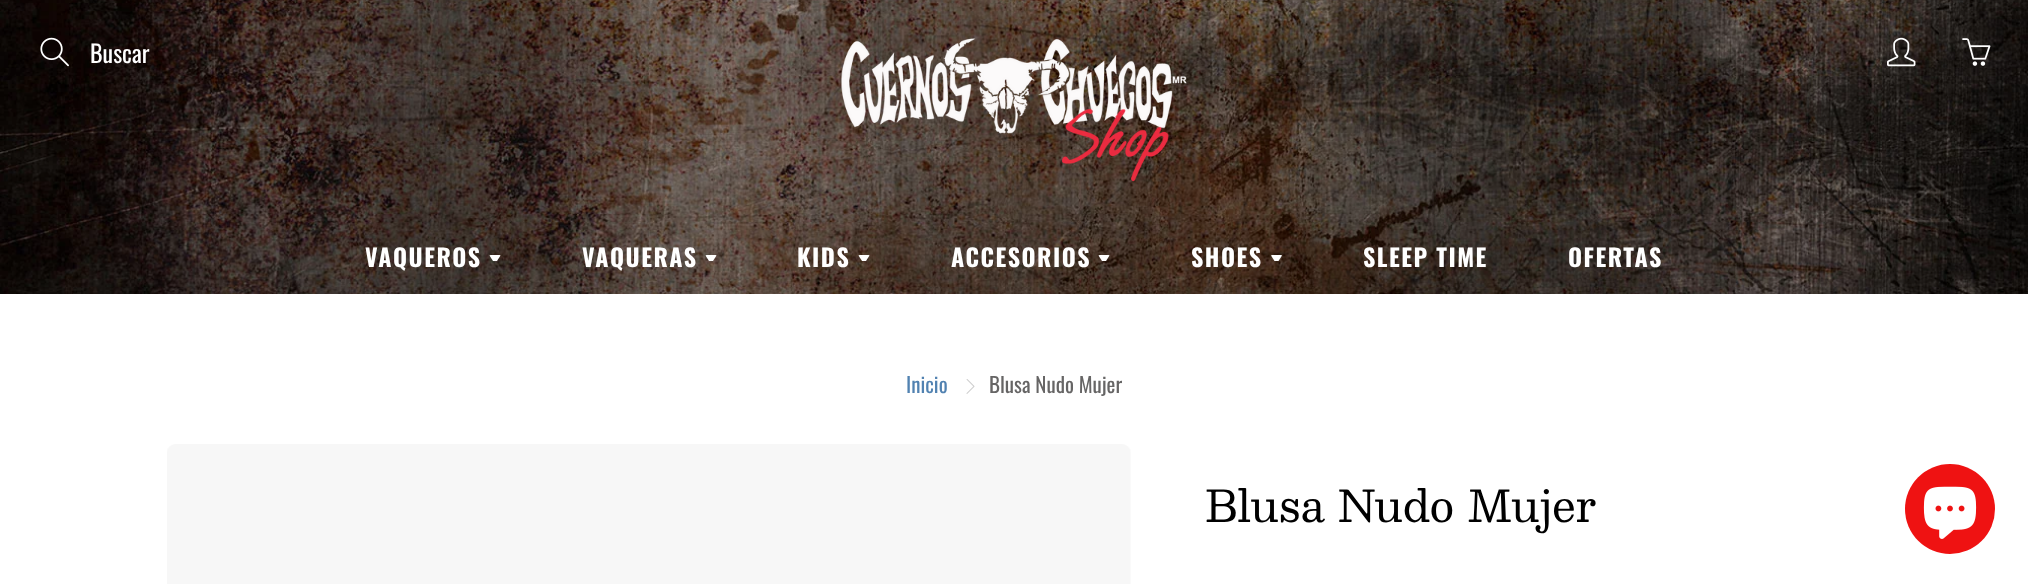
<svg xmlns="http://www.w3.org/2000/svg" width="2028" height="584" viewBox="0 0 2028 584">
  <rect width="100%" height="100%" fill="rgb(255,255,255)"/>
  <image x="0" y="0" width="2028" height="294" href="pic1.png"/>
  <image x="40" y="37" width="29" height="30" href="pic2.png"/>
  <text x="90" y="63" font-family="Oswald" font-size="24" fill="rgb(255,255,255)">Buscar</text>
  <image x="841" y="38" width="346" height="144" href="pic3.png"/>
  <image x="1887" y="37" width="29" height="30" href="pic4.png"/>
  <image x="1962" y="38" width="29" height="28" href="pic5.png"/>
  <text x="365" y="267" font-family="Oswald" font-size="24" font-weight="bold" letter-spacing="1.5" fill="rgb(255,255,255)">VAQUEROS</text>
  <path d="M490.5 255L489.5 255.5L493 261H497L500.5 255.5C500 255 499.5 255 498 255Z" fill="rgb(255,255,255)"/>
  <text x="582" y="267" font-family="Oswald" font-size="24" font-weight="bold" letter-spacing="1.5" fill="rgb(255,255,255)">VAQUERAS</text>
  <path d="M706.5 255L705.5 255.5L709 261H713L716.5 255.5C716 255 715.5 255 714 255Z" fill="rgb(255,255,255)"/>
  <text x="797" y="267" font-family="Oswald" font-size="24" font-weight="bold" letter-spacing="1.5" fill="rgb(255,255,255)">KIDS</text>
  <path d="M859.5 255L858.5 255.5L862 261H866L869.5 255.5C869 255 868.5 255 867 255Z" fill="rgb(255,255,255)"/>
  <text x="951" y="267" font-family="Oswald" font-size="24" font-weight="bold" letter-spacing="1.5" fill="rgb(255,255,255)">ACCESORIOS</text>
  <path d="M1099.5 255L1098.5 255.5L1102 261H1106L1109.5 255.5C1109 255 1108.5 255 1107 255Z" fill="rgb(255,255,255)"/>
  <text x="1191" y="267" font-family="Oswald" font-size="24" font-weight="bold" letter-spacing="1.5" fill="rgb(255,255,255)">SHOES</text>
  <path d="M1272 255L1271 255.5L1274.5 261H1278.5L1282 255.5C1281.5 255 1281 255 1279.5 255Z" fill="rgb(255,255,255)"/>
  <g font-family="Oswald" font-size="24" font-weight="bold" letter-spacing="1.5" fill="rgb(255,255,255)">
    <text x="1363" y="267">SLEEP TIME</text>
    <text x="1568" y="267">OFERTAS</text>
  </g>
  <text x="906" y="393" font-family="Oswald" font-size="21" fill="rgb(81,130,177)">Inicio</text>
  <image x="966" y="379" width="9" height="15" href="pic6.png"/>
  <text x="989" y="393" font-family="Oswald" font-size="21" fill="rgb(102,101,101)">Blusa Nudo Mujer</text>
  <image x="167" y="444" width="964" height="140" href="pic7.png"/>
  <text x="1205" y="522" font-family="Besley" font-size="43.5" fill="rgb(0,0,0)">Blusa Nudo Mujer</text>
  <circle cx="1950" cy="509" r="45" fill="rgb(239,18,18)"/>
  <image x="1923" y="486" width="54" height="53" href="pic8.png"/>
</svg>
